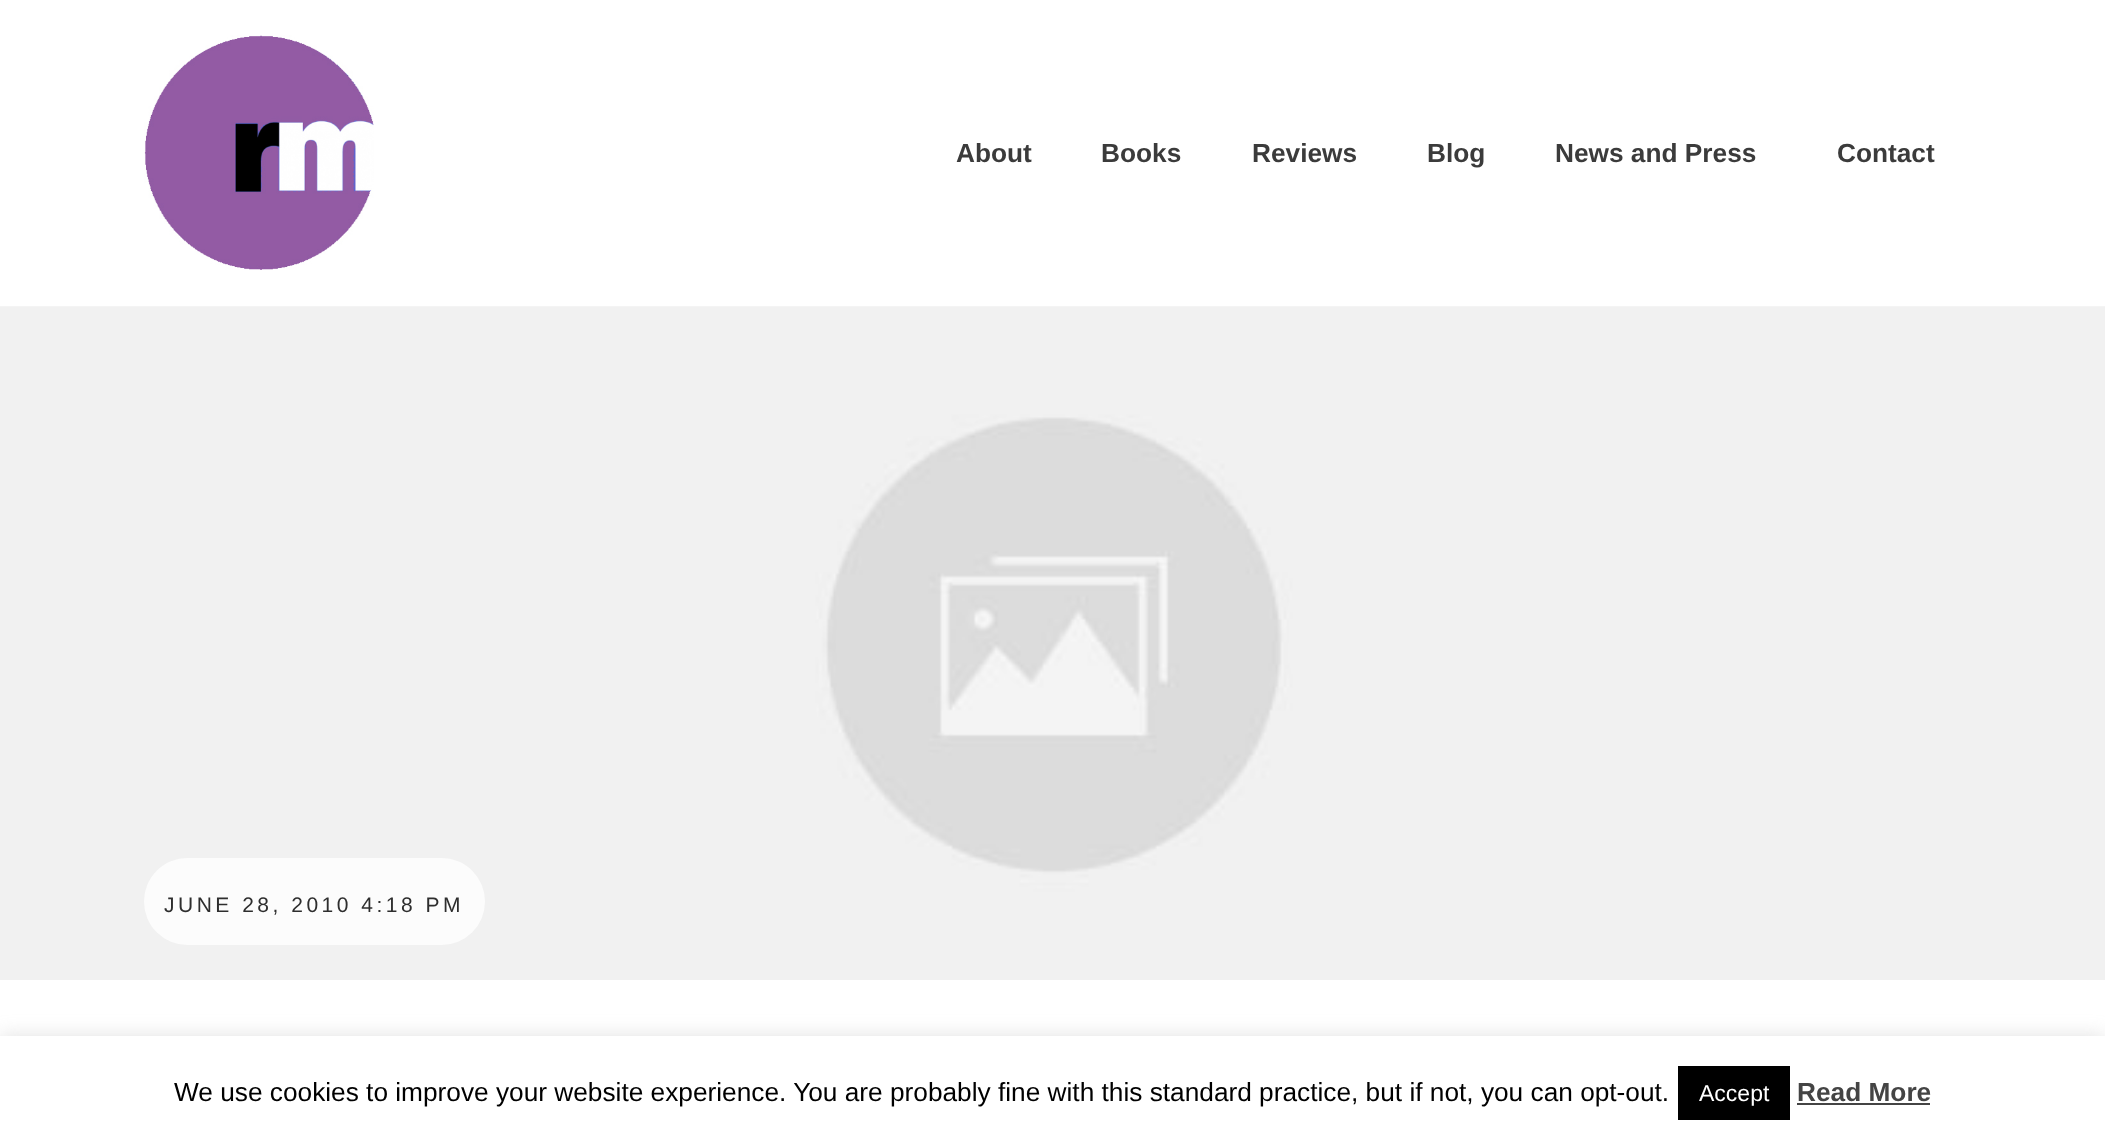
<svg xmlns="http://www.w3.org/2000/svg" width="2105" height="1140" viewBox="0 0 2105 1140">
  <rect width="100%" height="100%" fill="rgb(255,255,255)"/>
  <image x="144" y="35" width="230" height="235" href="pic1.png"/>
  <g font-family="Liberation Sans" font-size="26.25" font-weight="bold" fill="rgb(59,59,59)">
    <text x="956" y="162">About</text>
    <text x="1101" y="162">Books</text>
    <text x="1252" y="162">Reviews</text>
    <text x="1427" y="162">Blog</text>
    <text x="1555" y="162">News and Press</text>
    <text x="1837" y="162">Contact</text>
  </g>
  <image x="0" y="306" width="2105" height="674" href="pic2.png"/>
  <rect x="144" y="858" width="341" height="87" rx="43.5" fill="rgb(252,252,252)"/>
  <text x="164" y="912" font-family="Liberation Sans" font-size="21" letter-spacing="3.5" fill="rgb(46,46,46)">JUNE 28, 2010 4:18 PM</text>
  <rect x="0" y="1034" width="2105" height="105" fill="rgba(172,171,171,0.3)" filter="blur(9px)"/>
  <rect x="0" y="1036" width="2105" height="104" fill="rgb(255,255,255)"/>
  <text x="174" y="1101" font-family="Liberation Sans" font-size="26.25" fill="rgb(0,0,0)">We use cookies to improve your website experience. You are probably fine with this standard practice, but if not, you can opt-out.</text>
  <rect x="1678" y="1066" width="112" height="54" fill="rgb(0,0,0)"/>
  <text x="1699" y="1101" font-family="Liberation Sans" font-size="23" fill="rgb(255,255,255)">Accept</text>
  <text x="1797" y="1101" font-family="Liberation Sans" font-size="26.25" font-weight="bold" fill="rgb(68,68,68)">Read More</text>
  <rect x="1797" y="1103" width="133" height="2" fill="rgb(68,68,68)"/>
</svg>
